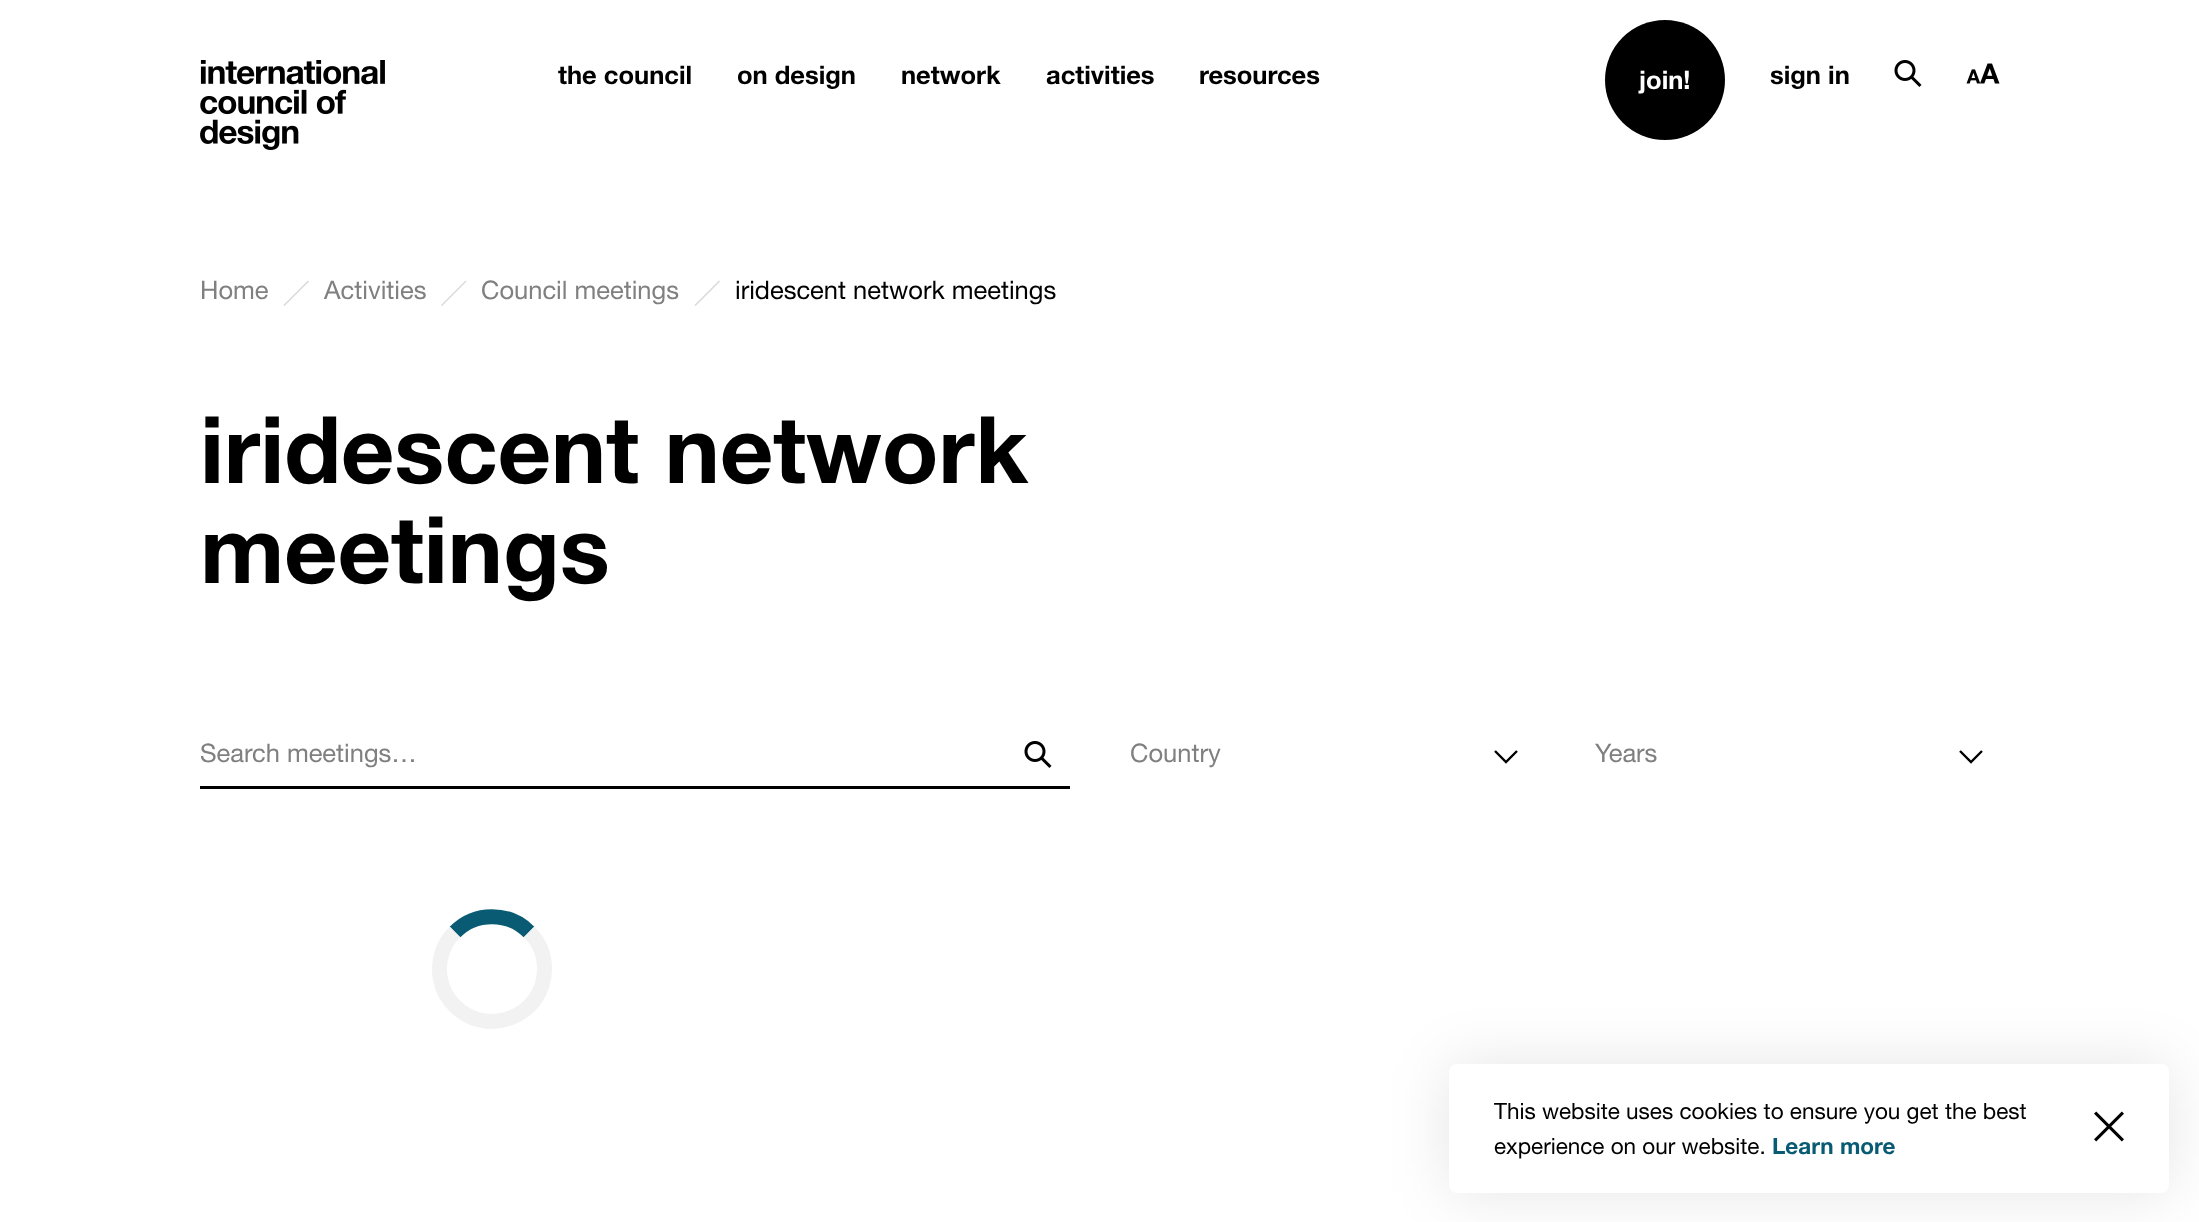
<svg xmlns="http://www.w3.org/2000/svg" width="2199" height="1222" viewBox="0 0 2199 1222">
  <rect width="100%" height="100%" fill="rgb(255,255,255)"/>
  <image x="200" y="60" width="185" height="90" href="pic1.png"/>
  <g font-family="Helvetica Neue" font-size="25.5" font-weight="bold" fill="rgb(0,0,0)">
    <text x="558" y="84">the council</text>
    <text x="737" y="84">on design</text>
    <text x="901" y="84">network</text>
    <text x="1046" y="84">activities</text>
    <text x="1199" y="84">resources</text>
  </g>
  <circle cx="1665" cy="80" r="60" fill="rgb(0,0,0)"/>
  <text x="1639" y="89" font-family="Helvetica Neue" font-size="25.5" font-weight="bold" fill="rgb(255,255,255)">join!</text>
  <text x="1770" y="84" font-family="Helvetica Neue" font-size="25.5" font-weight="bold" fill="rgb(0,0,0)">sign in</text>
  <image x="1894" y="60" width="28" height="27" href="pic2.png"/>
  <image x="1966" y="63" width="34" height="21" href="pic3.png"/>
  <text x="200" y="299" font-family="Helvetica Neue" font-size="25.5" fill="rgb(128,128,128)">Home</text>
  <path d="M284 305.5L308.5 281" fill="none" stroke="rgb(217,217,217)" stroke-width="1.5"/>
  <text x="324" y="299" font-family="Helvetica Neue" font-size="25.5" fill="rgb(128,128,128)">Activities</text>
  <path d="M441.5 305.5L466 281" fill="none" stroke="rgb(217,217,217)" stroke-width="1.5"/>
  <text x="481" y="299" font-family="Helvetica Neue" font-size="25.5" fill="rgb(128,128,128)">Council meetings</text>
  <path d="M695 305.5L719.5 281" fill="none" stroke="rgb(217,217,217)" stroke-width="1.5"/>
  <text x="735" y="299" font-family="Helvetica Neue" font-size="25.5" fill="rgb(0,0,0)">iridescent network meetings</text>
  <g font-family="Helvetica Neue" font-size="93" font-weight="bold" fill="rgb(0,0,0)">
    <text>
      <tspan x="200" y="483">iridescent network</tspan>
      <tspan x="200" y="583">meetings</tspan>
    </text>
  </g>
  <text x="200" y="762" font-family="Helvetica Neue" font-size="25.5" fill="rgb(128,128,128)">Search meetings…</text>
  <image x="1024" y="741" width="28" height="27" href="pic2.png"/>
  <rect x="200" y="786" width="870" height="3" fill="rgb(0,0,0)"/>
  <text x="1130" y="762" font-family="Helvetica Neue" font-size="25.5" fill="rgb(128,128,128)">Country</text>
  <path d="M1495 751L1506 762L1517 751" fill="none" stroke="rgb(0,0,0)" stroke-width="2.4"/>
  <text x="1595" y="762" font-family="Helvetica Neue" font-size="25.5" fill="rgb(128,128,128)">Years</text>
  <path d="M1960 751L1971 762L1982 751" fill="none" stroke="rgb(0,0,0)" stroke-width="2.4"/>
  <path d="M455 932C475 911.5 509 911.5 529 932" fill="none" stroke="rgb(8,91,115)" stroke-width="15"/>
  <path d="M529 932C539 941.5 544.5 955 544.5 969C544.5 1015.5 487.5 1039 455 1006C447.5 999 442.5 989.5 440.5 979.5C437 962 442.5 944 455 932" fill="none" stroke="rgb(242,242,242)" stroke-width="15"/>
  <rect x="1449" y="1064" width="720" height="129" rx="8" fill="rgba(0,0,0,0.1)" filter="blur(30px)"/>
  <rect x="1449" y="1064" width="720" height="129" rx="8" fill="rgb(255,255,255)"/>
  <g font-family="Helvetica Neue" font-size="22.5" fill="rgb(0,0,0)">
    <text>
      <tspan x="1494" y="1119">This website uses cookies to ensure you get the best</tspan>
      <tspan x="1494" y="1154">experience on our website.</tspan>
    </text>
  </g>
  <text x="1772" y="1154" font-family="Helvetica Neue" font-size="22.5" font-weight="bold" fill="rgb(8,91,115)">Learn more</text>
  <image x="2094" y="1111" width="30" height="31" href="pic4.png"/>
</svg>
